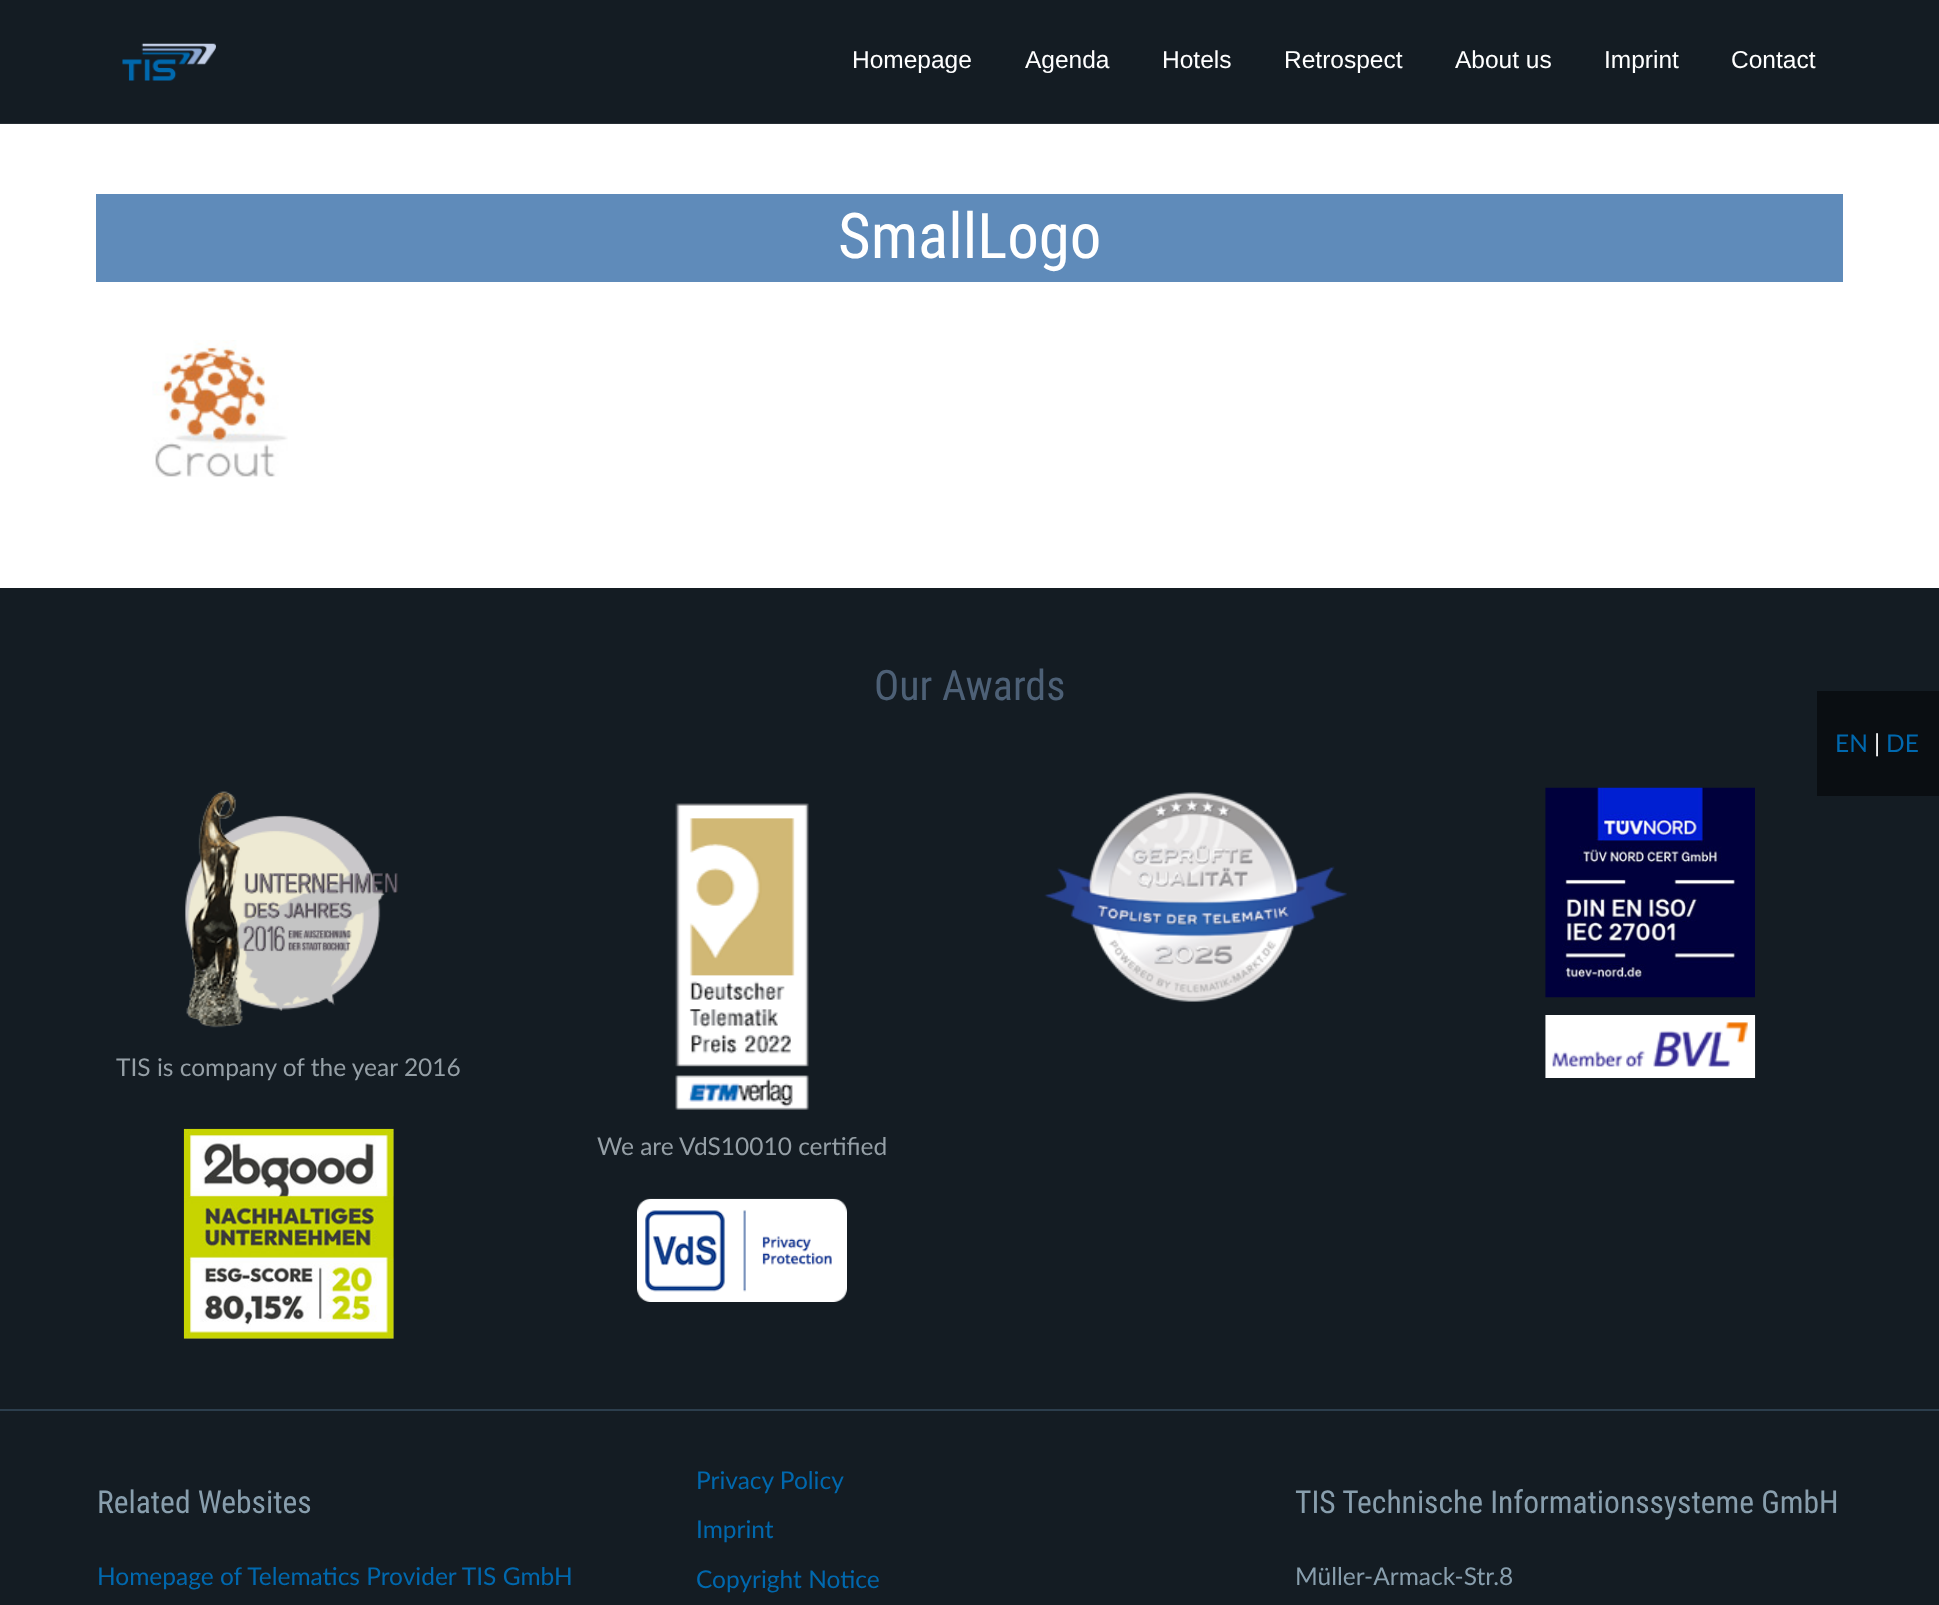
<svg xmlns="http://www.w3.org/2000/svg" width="1939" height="1605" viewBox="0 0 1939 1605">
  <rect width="100%" height="100%" fill="rgb(20,28,35)"/>
  <rect x="0" y="123" width="1939" height="1" fill="rgb(39,46,52)"/>
  <image x="122" y="43" width="94" height="38" href="pic1.png"/>
  <g font-family="Liberation Sans" font-size="24.5" fill="rgb(255,255,255)">
    <text x="852" y="68">Homepage</text>
    <text x="1025" y="68">Agenda</text>
    <text x="1162" y="68">Hotels</text>
    <text x="1284" y="68">Retrospect</text>
    <text x="1455" y="68">About us</text>
    <text x="1604" y="68">Imprint</text>
    <text x="1731" y="68">Contact</text>
  </g>
  <rect x="0" y="124" width="1939" height="464" fill="rgb(255,255,255)"/>
  <rect x="96" y="194" width="1747" height="88" fill="rgb(95,139,186)"/>
  <text x="838" y="258" font-family="Roboto Condensed" font-size="63" fill="rgb(255,255,255)">SmallLogo</text>
  <image x="152" y="340" width="136" height="137" href="pic2.png"/>
  <text x="874" y="700" font-family="Roboto Condensed" font-size="42" fill="rgb(77,96,118)">Our Awards</text>
  <image x="185" y="791" width="213" height="237" href="pic3.png"/>
  <text x="116" y="1076" font-family="Lato" font-size="24.5" fill="rgb(149,159,166)">TIS is company of the year 2016</text>
  <image x="675" y="803" width="134" height="307" href="pic4.png"/>
  <image x="1044" y="792" width="303" height="210" href="pic5.png"/>
  <image x="1545" y="787" width="210" height="211" href="pic6.png"/>
  <image x="1545" y="1015" width="211" height="63" href="pic7.png"/>
  <image x="183" y="1128" width="211" height="211" href="pic8.png"/>
  <text x="597" y="1155" font-family="Lato" font-size="24.5" fill="rgb(149,159,166)">We are VdS10010 certified</text>
  <image x="637" y="1198" width="210" height="104" href="pic9.png"/>
  <rect x="0" y="1409" width="1939" height="2" fill="rgb(44,62,77)"/>
  <text x="97" y="1513" font-family="Roboto Condensed" font-size="31.5" fill="rgb(136,158,173)">Related Websites</text>
  <g font-family="Lato" font-size="24.5" fill="rgb(0,104,174)">
    <text x="97" y="1585">Homepage of Telematics Provider TIS GmbH</text>
    <text x="696" y="1489">Privacy Policy</text>
    <text x="696" y="1538">Imprint</text>
    <text x="696" y="1588">Copyright Notice</text>
  </g>
  <text x="1295" y="1513" font-family="Roboto Condensed" font-size="31.5" fill="rgb(136,158,173)">TIS Technische Informationssysteme GmbH</text>
  <text x="1295" y="1585" font-family="Lato" font-size="24.5" fill="rgb(136,158,173)">Müller-Armack-Str.8</text>
  <rect x="1817" y="691" width="122" height="105" fill="rgb(10,14,18)"/>
  <text x="1835" y="752" font-family="Lato" font-size="24.5" fill="rgb(0,104,174)">EN</text>
  <text x="1874" y="752" font-family="Lato" font-size="24.5" fill="rgb(255,255,255)">|</text>
  <text x="1886" y="752" font-family="Lato" font-size="24.5" fill="rgb(0,104,174)">DE</text>
</svg>
